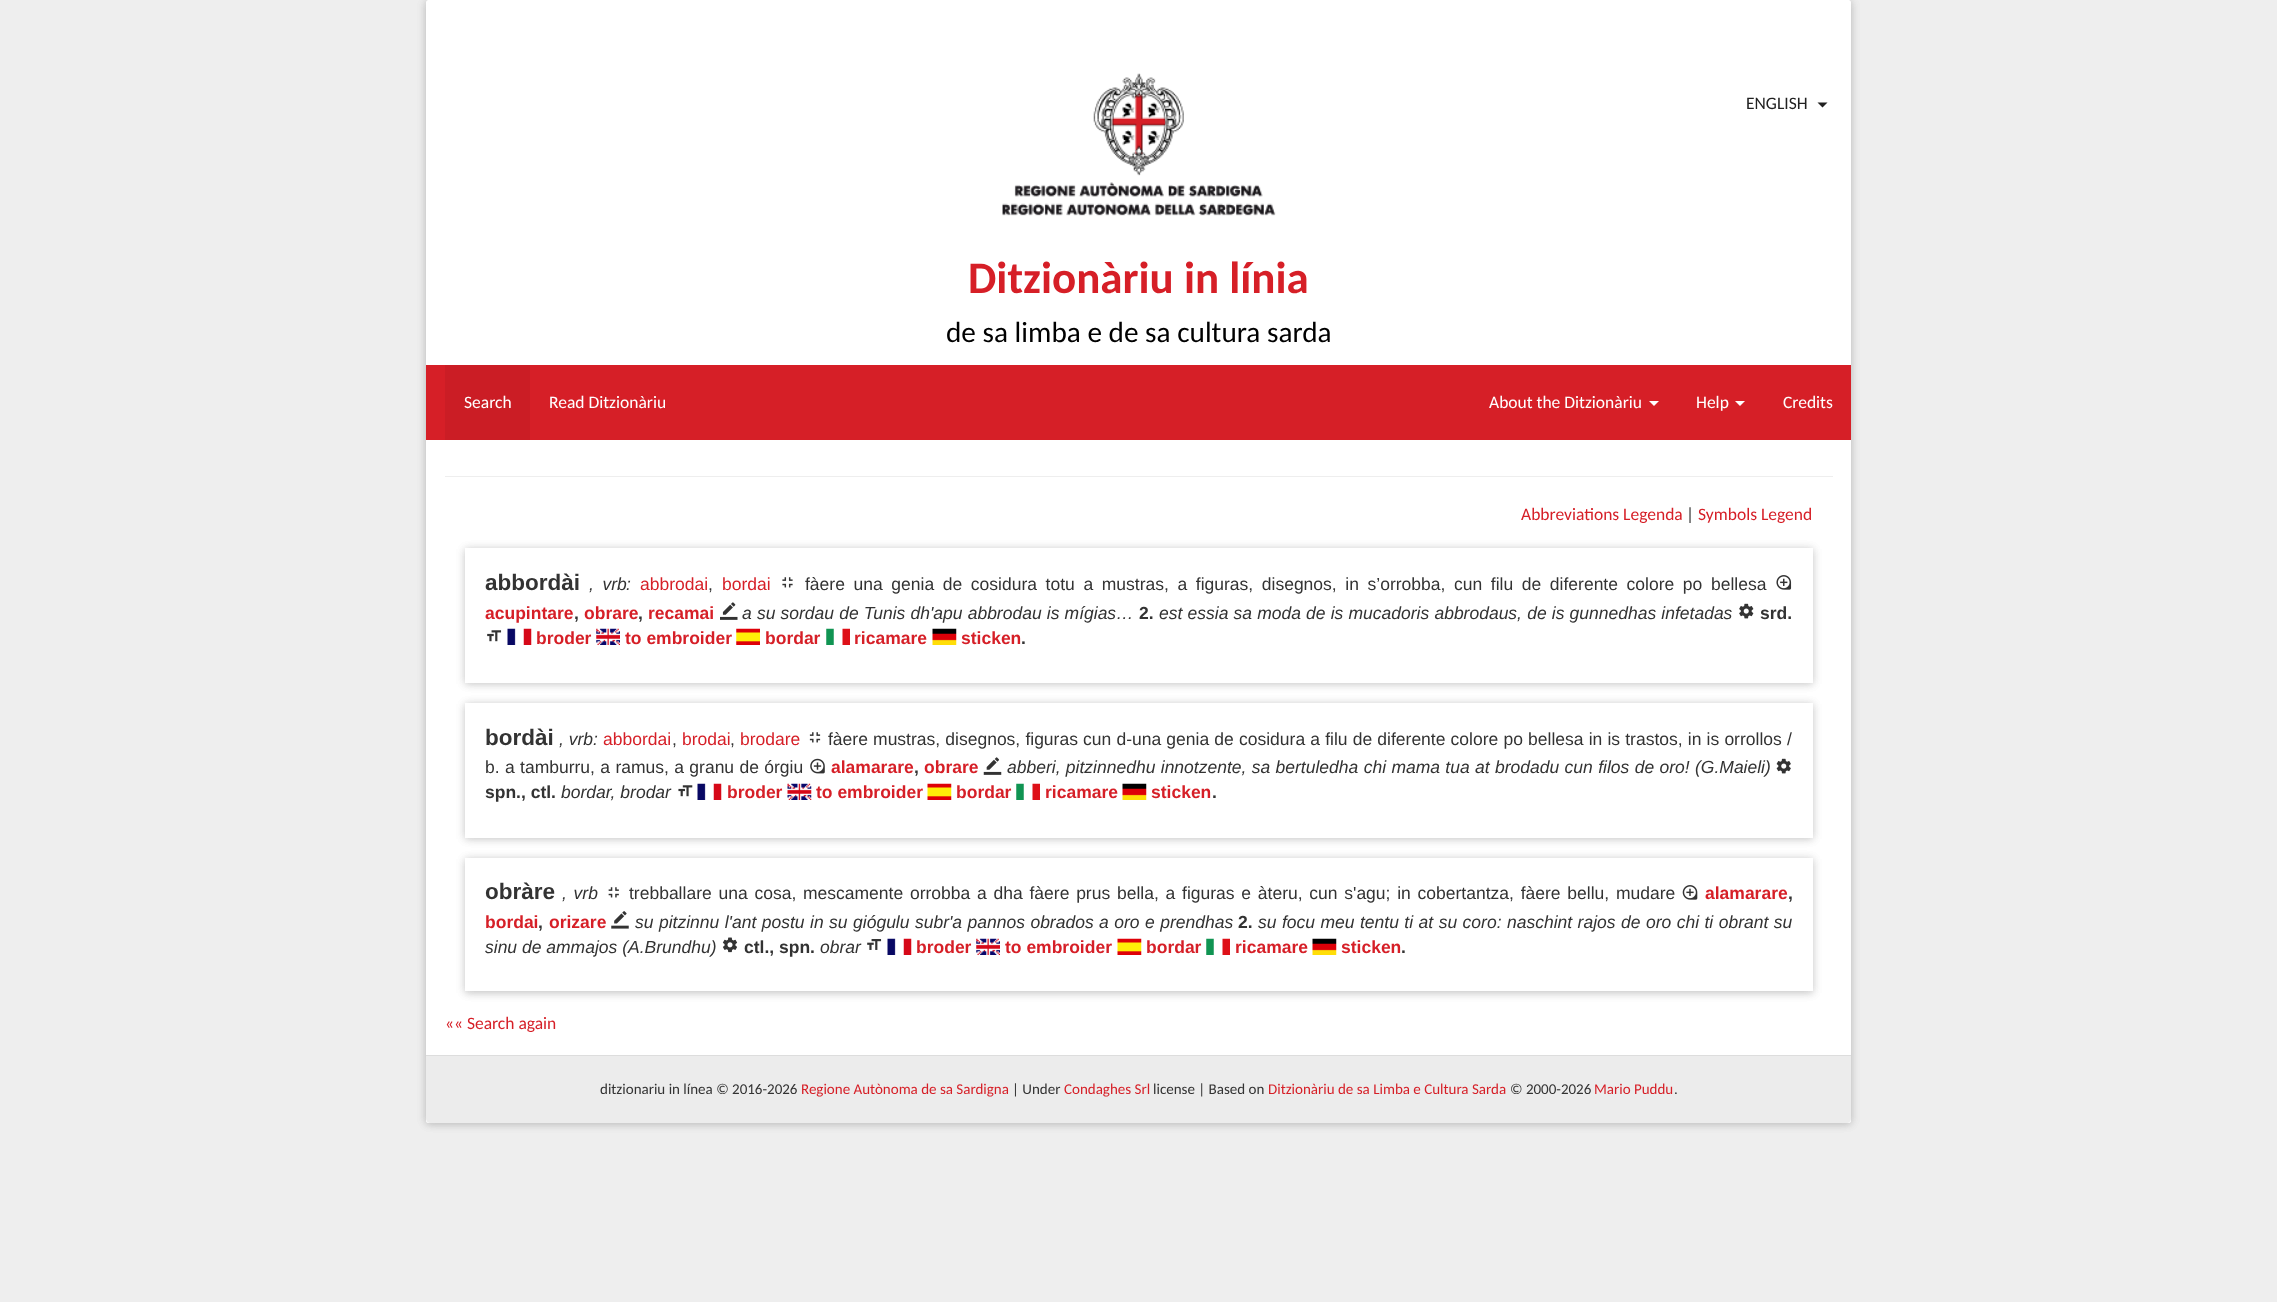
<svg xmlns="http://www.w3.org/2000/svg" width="2277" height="1302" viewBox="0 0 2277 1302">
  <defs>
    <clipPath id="clip1"><path d="M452 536H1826V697H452ZM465 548H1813V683H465Z" clip-rule="evenodd"/></clipPath>
    <clipPath id="clip2"><path d="M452 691H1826V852H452ZM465 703H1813V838H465Z" clip-rule="evenodd"/></clipPath>
    <clipPath id="clip3"><path d="M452 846H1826V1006H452ZM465 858H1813V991H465Z" clip-rule="evenodd"/></clipPath>
  </defs>
  <rect width="100%" height="100%" fill="rgb(238,238,238)"/>
  <rect x="426" y="1" width="1425" height="1123" rx="2.5" fill="rgba(0,0,0,0.12)" filter="blur(4px)"/>
  <rect x="426" y="1" width="1425" height="1123" rx="2.5" fill="rgba(0,0,0,0.12)" filter="blur(4px)"/>
  <rect x="426" y="0" width="1425" height="1123" rx="2.5" fill="rgb(255,255,255)"/>
  <rect x="445" y="476" width="1388" height="1" fill="rgb(238,238,238)"/>
  <text x="1746" y="109" font-family="Carlito" font-size="17.5" fill="rgb(33,33,33)">ENGLISH</text>
  <path d="M1817.5 102.5H1827.5L1822.5 107.5Z" fill="rgb(33,33,33)"/>
  <image x="1002" y="73" width="274" height="143" href="pic1.png"/>
  <text x="968" y="293" font-family="Carlito" font-size="45" font-weight="bold" fill="rgb(214,31,39)">Ditzionàriu in línia</text>
  <text x="946" y="342" font-family="Carlito" font-size="29.25" fill="rgb(0,0,0)">de sa limba e de sa cultura sarda</text>
  <rect x="426" y="365" width="1425" height="75" fill="rgb(214,31,39)"/>
  <rect x="445" y="365" width="85" height="75" fill="rgb(203,29,37)"/>
  <g font-family="Carlito" font-size="17.5" fill="rgb(255,255,255)">
    <text x="464" y="408">Search</text>
    <text x="549" y="408">Read Ditzionàriu</text>
    <text x="1489" y="408">About the Ditzionàriu</text>
  </g>
  <path d="M1649 401H1659L1654 406Z" fill="rgb(255,255,255)"/>
  <text x="1696" y="408" font-family="Carlito" font-size="17.5" fill="rgb(255,255,255)">Help</text>
  <path d="M1735 401H1745L1740 406Z" fill="rgb(255,255,255)"/>
  <text x="1783" y="408" font-family="Carlito" font-size="17.5" fill="rgb(255,255,255)">Credits</text>
  <text x="1521" y="520" font-family="Carlito" font-size="17.5" fill="rgb(214,31,39)">Abbreviations Legenda</text>
  <text x="1686" y="520" font-family="Carlito" font-size="17.5" fill="rgb(51,51,51)">|</text>
  <text x="1698" y="520" font-family="Carlito" font-size="17.5" fill="rgb(214,31,39)">Symbols Legend</text>
  <g clip-path="url(#clip1)">
    <rect x="465" y="549" width="1348" height="135" fill="rgba(0,0,0,0.12)" filter="blur(4px)"/>
    <rect x="465" y="549" width="1348" height="135" fill="rgba(0,0,0,0.12)" filter="blur(4px)"/>
  </g>
  <text x="485" y="590" font-family="Liberation Sans" font-size="22.5" font-weight="bold" fill="rgb(51,51,51)">abbordài</text>
  <g font-family="Liberation Sans" font-size="17.5" font-style="italic" fill="rgb(51,51,51)">
    <text x="589" y="590" word-spacing="3.75">, vrb</text>
    <text x="626" y="590">:</text>
  </g>
  <g font-family="Liberation Sans" font-size="17.5" fill="rgb(214,31,39)">
    <text x="640" y="590">abbrodai</text>
    <text x="722" y="590">bordai</text>
  </g>
  <image x="782" y="577" width="11" height="11" href="pic2.png"/>
  <text x="805" y="590" word-spacing="3.75" font-family="Liberation Sans" font-size="17.5" fill="rgb(51,51,51)">fàere una genia de cosidura totu a mustras, a figuras, disegnos, in s’orrobba, cun filu de diferente colore po bellesa</text>
  <image x="1776" y="575" width="16" height="15" href="pic3.png"/>
  <text x="708" y="590" font-family="Liberation Sans" font-size="17.5" fill="rgb(51,51,51)">,</text>
  <text x="485" y="619" font-family="Liberation Sans" font-size="17.5" font-weight="bold" fill="rgb(214,31,39)">acupintare</text>
  <text x="574" y="619" font-family="Liberation Sans" font-size="17.5" font-weight="bold" fill="rgb(51,51,51)">,</text>
  <text x="584" y="619" font-family="Liberation Sans" font-size="17.5" font-weight="bold" fill="rgb(214,31,39)">obrare</text>
  <text x="638" y="619" font-family="Liberation Sans" font-size="17.5" font-weight="bold" fill="rgb(51,51,51)">,</text>
  <text x="648" y="619" font-family="Liberation Sans" font-size="17.5" font-weight="bold" fill="rgb(214,31,39)">recamai</text>
  <image x="720" y="602" width="18" height="18" href="pic4.png"/>
  <text x="742" y="619" word-spacing="0.3" font-family="Liberation Sans" font-size="17.5" font-style="italic" fill="rgb(51,51,51)">a su sordau de Tunis dh'apu abbrodau is mígias…</text>
  <text x="1139" y="619" font-family="Liberation Sans" font-size="17.5" font-weight="bold" fill="rgb(51,51,51)">2.</text>
  <text x="1159" y="619" word-spacing="0.3" font-family="Liberation Sans" font-size="17.5" font-style="italic" fill="rgb(51,51,51)">est essia sa moda de is mucadoris abbrodaus, de is gunnedhas infetadas</text>
  <image x="1739" y="603" width="15" height="16" href="pic5.png"/>
  <text x="1760" y="619" font-family="Liberation Sans" font-size="17.5" font-weight="bold" fill="rgb(51,51,51)">srd.</text>
  <image x="487" y="630" width="15" height="12" href="pic6.png"/>
  <image x="507" y="628" width="25" height="17" href="pic7.png"/>
  <text x="536" y="644" font-family="Liberation Sans" font-size="17.5" font-weight="bold" fill="rgb(214,31,39)">broder</text>
  <image x="596" y="628" width="24" height="17" href="pic8.png"/>
  <text x="625" y="644" font-family="Liberation Sans" font-size="17.5" font-weight="bold" fill="rgb(214,31,39)">to embroider</text>
  <image x="736" y="628" width="24" height="17" href="pic9.png"/>
  <text x="765" y="644" font-family="Liberation Sans" font-size="17.5" font-weight="bold" fill="rgb(214,31,39)">bordar</text>
  <image x="826" y="628" width="24" height="17" href="pic10.png"/>
  <text x="854" y="644" font-family="Liberation Sans" font-size="17.5" font-weight="bold" fill="rgb(214,31,39)">ricamare</text>
  <image x="932" y="628" width="25" height="17" href="pic11.png"/>
  <text x="961" y="644" font-family="Liberation Sans" font-size="17.5" font-weight="bold" fill="rgb(214,31,39)">sticken</text>
  <text x="1021" y="644" font-family="Liberation Sans" font-size="17.5" font-weight="bold" fill="rgb(51,51,51)">.</text>
  <g clip-path="url(#clip2)">
    <rect x="465" y="704" width="1348" height="135" fill="rgba(0,0,0,0.12)" filter="blur(4px)"/>
    <rect x="465" y="704" width="1348" height="135" fill="rgba(0,0,0,0.12)" filter="blur(4px)"/>
  </g>
  <text x="485" y="745" font-family="Liberation Sans" font-size="22.5" font-weight="bold" fill="rgb(51,51,51)">bordài</text>
  <g font-family="Liberation Sans" font-size="17.5" font-style="italic" fill="rgb(51,51,51)">
    <text x="559" y="745">, vrb</text>
    <text x="593" y="745">:</text>
  </g>
  <g font-family="Liberation Sans" font-size="17.5" fill="rgb(214,31,39)">
    <text x="603" y="745">abbordai</text>
    <text x="682" y="745">brodai</text>
    <text x="740" y="745">brodare</text>
  </g>
  <image x="809" y="732" width="12" height="11" href="pic12.png"/>
  <g font-family="Liberation Sans" font-size="17.5" fill="rgb(51,51,51)">
    <text x="828" y="745" word-spacing="0.3">fàere mustras, disegnos, figuras cun d-una genia de cosidura a filu de diferente colore po bellesa in is trastos, in is orrollos /</text>
    <text x="672" y="745">,</text>
    <text x="730" y="745">,</text>
    <text x="485" y="773" word-spacing="0.5">b. a tamburru, a ramus, a granu de órgiu</text>
  </g>
  <image x="810" y="758" width="15" height="16" href="pic13.png"/>
  <text x="831" y="773" font-family="Liberation Sans" font-size="17.5" font-weight="bold" fill="rgb(214,31,39)">alamarare</text>
  <text x="914" y="773" font-family="Liberation Sans" font-size="17.5" font-weight="bold" fill="rgb(51,51,51)">,</text>
  <text x="924" y="773" font-family="Liberation Sans" font-size="17.5" font-weight="bold" fill="rgb(214,31,39)">obrare</text>
  <image x="983" y="757" width="19" height="18" href="pic14.png"/>
  <text x="1007" y="773" word-spacing="0.5" font-family="Liberation Sans" font-size="17.5" font-style="italic" fill="rgb(51,51,51)">abberi, pitzinnedhu innotzente, sa bertuledha chi mama tua at brodadu cun filos de oro! (G.Maieli)</text>
  <image x="1776" y="758" width="15" height="16" href="pic15.png"/>
  <text x="485" y="798" font-family="Liberation Sans" font-size="17.5" font-weight="bold" fill="rgb(51,51,51)">spn., ctl.</text>
  <text x="561" y="798" font-family="Liberation Sans" font-size="17.5" font-style="italic" fill="rgb(51,51,51)">bordar, brodar</text>
  <image x="678" y="785" width="15" height="12" href="pic16.png"/>
  <image x="697" y="783" width="25" height="17" href="pic7.png"/>
  <text x="727" y="798" font-family="Liberation Sans" font-size="17.5" font-weight="bold" fill="rgb(214,31,39)">broder</text>
  <image x="787" y="783" width="25" height="17" href="pic17.png"/>
  <text x="816" y="798" font-family="Liberation Sans" font-size="17.5" font-weight="bold" fill="rgb(214,31,39)">to embroider</text>
  <image x="927" y="783" width="25" height="17" href="pic18.png"/>
  <text x="956" y="798" font-family="Liberation Sans" font-size="17.5" font-weight="bold" fill="rgb(214,31,39)">bordar</text>
  <image x="1016" y="783" width="24" height="17" href="pic10.png"/>
  <text x="1045" y="798" font-family="Liberation Sans" font-size="17.5" font-weight="bold" fill="rgb(214,31,39)">ricamare</text>
  <image x="1122" y="783" width="25" height="17" href="pic11.png"/>
  <text x="1151" y="798" font-family="Liberation Sans" font-size="17.5" font-weight="bold" fill="rgb(214,31,39)">sticken</text>
  <text x="1212" y="798" font-family="Liberation Sans" font-size="17.5" font-weight="bold" fill="rgb(51,51,51)">.</text>
  <g clip-path="url(#clip3)">
    <rect x="465" y="859" width="1348" height="134" fill="rgba(0,0,0,0.12)" filter="blur(4px)"/>
    <rect x="465" y="859" width="1348" height="134" fill="rgba(0,0,0,0.12)" filter="blur(4px)"/>
  </g>
  <text x="485" y="899" font-family="Liberation Sans" font-size="22.5" font-weight="bold" fill="rgb(51,51,51)">obràre</text>
  <text x="562" y="899" word-spacing="1.9" font-family="Liberation Sans" font-size="17.5" font-style="italic" fill="rgb(51,51,51)">, vrb</text>
  <image x="608" y="887" width="11" height="11" href="pic19.png"/>
  <text x="629" y="899" word-spacing="1.9" font-family="Liberation Sans" font-size="17.5" fill="rgb(51,51,51)">trebballare una cosa, mescamente orrobba a dha fàere prus bella, a figuras e àteru, cun s'agu; in cobertantza, fàere bellu, mudare</text>
  <image x="1682" y="885" width="16" height="15" href="pic20.png"/>
  <text x="1705" y="899" font-family="Liberation Sans" font-size="17.5" font-weight="bold" fill="rgb(214,31,39)">alamarare</text>
  <text x="1788" y="899" font-family="Liberation Sans" font-size="17.5" font-weight="bold" fill="rgb(51,51,51)">,</text>
  <text x="485" y="928" font-family="Liberation Sans" font-size="17.5" font-weight="bold" fill="rgb(214,31,39)">bordai</text>
  <text x="538" y="928" font-family="Liberation Sans" font-size="17.5" font-weight="bold" fill="rgb(51,51,51)">,</text>
  <text x="549" y="928" font-family="Liberation Sans" font-size="17.5" font-weight="bold" fill="rgb(214,31,39)">orizare</text>
  <image x="611" y="911" width="18" height="18" href="pic21.png"/>
  <text x="635" y="928" word-spacing="0.6" font-family="Liberation Sans" font-size="17.5" font-style="italic" fill="rgb(51,51,51)">su pitzinnu l'ant postu in su giógulu subr'a pannos obrados a oro e prendhas</text>
  <text x="1238" y="928" font-family="Liberation Sans" font-size="17.5" font-weight="bold" fill="rgb(51,51,51)">2.</text>
  <g font-family="Liberation Sans" font-size="17.5" font-style="italic" fill="rgb(51,51,51)">
    <text x="1258" y="928" word-spacing="0.6">su focu meu tentu ti at su coro: naschint rajos de oro chi ti obrant su</text>
    <text x="485" y="953">sinu de ammajos (A.Brundhu)</text>
  </g>
  <image x="722" y="937" width="16" height="16" href="pic22.png"/>
  <text x="744" y="953" font-family="Liberation Sans" font-size="17.5" font-weight="bold" fill="rgb(51,51,51)">ctl., spn.</text>
  <text x="820" y="953" font-family="Liberation Sans" font-size="17.5" font-style="italic" fill="rgb(51,51,51)">obrar</text>
  <image x="867" y="939" width="15" height="11" href="pic23.png"/>
  <image x="887" y="938" width="25" height="17" href="pic7.png"/>
  <text x="916" y="953" font-family="Liberation Sans" font-size="17.5" font-weight="bold" fill="rgb(214,31,39)">broder</text>
  <image x="976" y="938" width="24" height="17" href="pic8.png"/>
  <text x="1005" y="953" font-family="Liberation Sans" font-size="17.5" font-weight="bold" fill="rgb(214,31,39)">to embroider</text>
  <image x="1117" y="938" width="25" height="17" href="pic18.png"/>
  <text x="1146" y="953" font-family="Liberation Sans" font-size="17.5" font-weight="bold" fill="rgb(214,31,39)">bordar</text>
  <image x="1206" y="938" width="24" height="17" href="pic10.png"/>
  <text x="1235" y="953" font-family="Liberation Sans" font-size="17.5" font-weight="bold" fill="rgb(214,31,39)">ricamare</text>
  <image x="1312" y="938" width="25" height="17" href="pic11.png"/>
  <text x="1341" y="953" font-family="Liberation Sans" font-size="17.5" font-weight="bold" fill="rgb(214,31,39)">sticken</text>
  <text x="1401" y="953" font-family="Liberation Sans" font-size="17.5" font-weight="bold" fill="rgb(51,51,51)">.</text>
  <text x="445" y="1029" font-family="Carlito" font-size="17.5" fill="rgb(214,31,39)">«« Search again</text>
  <path d="M426 1055H1851V1119C1851 1121 1849 1123 1847 1123H430C428 1123 426 1121 426 1119Z" fill="rgb(236,236,236)"/>
  <rect x="426" y="1055" width="1425" height="1" fill="rgb(221,221,221)"/>
  <text x="600" y="1094" font-family="Carlito" font-size="15" fill="rgb(51,51,51)">ditzionariu in línea © 2016-2026</text>
  <text x="801" y="1094" font-family="Carlito" font-size="15" fill="rgb(214,31,39)">Regione Autònoma de sa Sardigna</text>
  <text x="1012" y="1094" font-family="Carlito" font-size="15" fill="rgb(51,51,51)">| Under</text>
  <text x="1064" y="1094" font-family="Carlito" font-size="15" fill="rgb(214,31,39)">Condaghes Srl</text>
  <text x="1153" y="1094" font-family="Carlito" font-size="15" fill="rgb(51,51,51)">license | Based on</text>
  <text x="1268" y="1094" font-family="Carlito" font-size="15" fill="rgb(214,31,39)">Ditzionàriu de sa Limba e Cultura Sarda</text>
  <text x="1510" y="1094" font-family="Carlito" font-size="15" fill="rgb(51,51,51)">© 2000-2026</text>
  <text x="1594" y="1094" font-family="Carlito" font-size="15" fill="rgb(214,31,39)">Mario Puddu</text>
  <text x="1674" y="1094" font-family="Carlito" font-size="15" fill="rgb(51,51,51)">.</text>
</svg>
